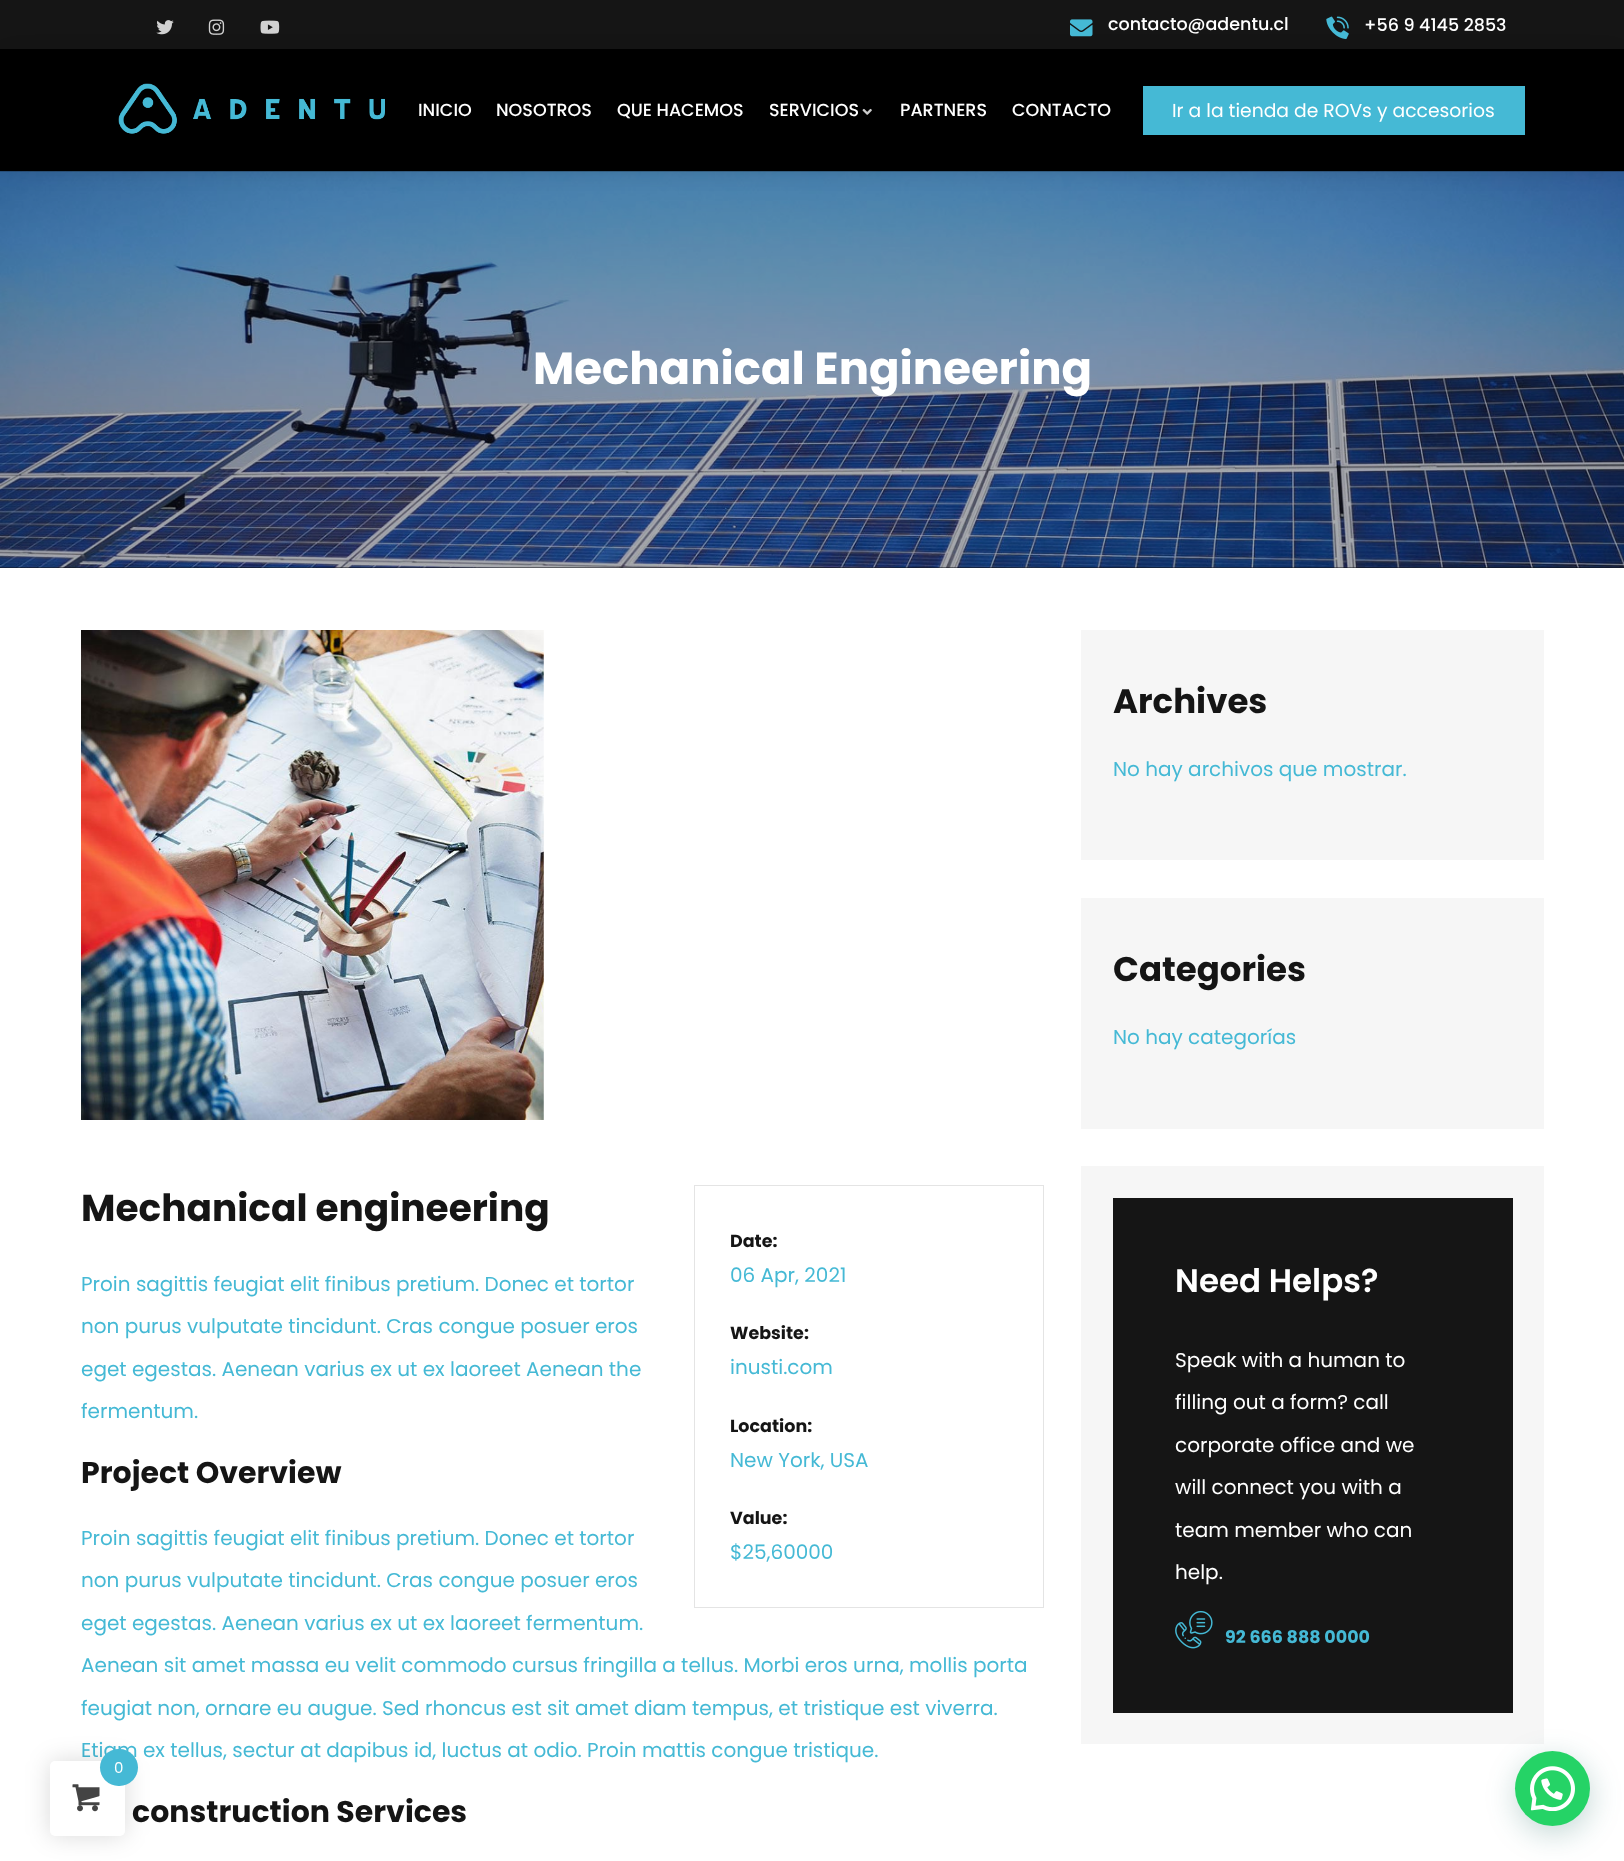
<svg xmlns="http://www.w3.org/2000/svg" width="1624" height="1861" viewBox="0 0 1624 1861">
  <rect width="100%" height="100%" fill="rgb(255,255,255)"/>
  <rect x="0" y="0" width="1624" height="49" fill="rgb(21,21,21)"/>
  <rect x="0" y="171" width="1624" height="397" fill="rgb(19,21,25)"/>
  <image x="0" y="171" width="1624" height="397" href="pic8.png"/>
  <rect x="9" y="60" width="1607" height="105" fill="rgba(0,0,0,0.2)" filter="blur(12.5px)"/>
  <image x="156" y="20" width="18" height="15" href="pic1.png"/>
  <image x="208" y="19" width="17" height="16" href="pic2.png"/>
  <image x="260" y="20" width="20" height="14" href="pic3.png"/>
  <image x="1070" y="19" width="23" height="18" href="pic4.png"/>
  <text x="1108" y="30" font-family="Poppins" font-size="17.5" font-weight="500" fill="rgb(255,255,255)">contacto@adentu.cl</text>
  <image x="1326" y="16" width="23" height="24" href="pic5.png"/>
  <text x="1364" y="31" font-family="Poppins" font-size="17.5" font-weight="500" fill="rgb(255,255,255)">+56 9 4145 2853</text>
  <rect x="0" y="49" width="1624" height="122" fill="rgb(0,0,0)"/>
  <image x="118" y="83" width="267" height="51" href="pic6.png"/>
  <g font-family="Poppins" font-size="17.5" font-weight="500" fill="rgb(255,255,255)">
    <text x="418" y="116">INICIO</text>
    <text x="496" y="116">NOSOTROS</text>
    <text x="617" y="116">QUE HACEMOS</text>
    <text x="769" y="116">SERVICIOS</text>
  </g>
  <image x="862" y="108" width="10" height="7" href="pic7.png"/>
  <g font-family="Poppins" font-size="17.5" font-weight="500" fill="rgb(255,255,255)">
    <text x="900" y="116">PARTNERS</text>
    <text x="1012" y="116">CONTACTO</text>
  </g>
  <rect x="1143" y="86" width="382" height="49" fill="rgb(69,185,213)"/>
  <text x="1172" y="117" font-family="Poppins" font-size="18.75" fill="rgb(255,255,255)">Ir a la tienda de ROVs y accesorios</text>
  <text x="533" y="384" font-family="Poppins" font-size="45" font-weight="bold" fill="rgb(255,255,255)">Mechanical Engineering</text>
  <image x="81" y="630" width="463" height="490" href="pic9.png"/>
  <text x="81" y="1221" font-family="Poppins" font-size="37.5" font-weight="bold" fill="rgb(21,21,21)">Mechanical engineering</text>
  <g font-family="Poppins" font-size="20" fill="rgb(69,185,213)">
    <text x="81" y="1291">Proin sagittis feugiat elit finibus pretium. Donec et tortor</text>
    <text x="81" y="1333">non purus vulputate tincidunt. Cras congue posuer eros</text>
    <text x="81" y="1376">eget egestas. Aenean varius ex ut ex laoreet Aenean the</text>
    <text x="81" y="1418">fermentum.</text>
  </g>
  <text x="81" y="1483" font-family="Poppins" font-size="30" font-weight="bold" fill="rgb(21,21,21)">Project Overview</text>
  <g font-family="Poppins" font-size="20" fill="rgb(69,185,213)">
    <text x="81" y="1545">Proin sagittis feugiat elit finibus pretium. Donec et tortor</text>
    <text x="81" y="1587">non purus vulputate tincidunt. Cras congue posuer eros</text>
    <text x="81" y="1630">eget egestas. Aenean varius ex ut ex laoreet fermentum.</text>
    <text x="81" y="1672">Aenean sit amet massa eu velit commodo cursus fringilla a tellus. Morbi eros urna, mollis porta</text>
    <text x="81" y="1715">feugiat non, ornare eu augue. Sed rhoncus est sit amet diam tempus, et tristique est viverra.</text>
    <text x="81" y="1757">Etiam ex tellus, sectur at dapibus id, luctus at odio. Proin mattis congue tristique.</text>
  </g>
  <text x="132" y="1822" font-family="Poppins" font-size="30" font-weight="bold" fill="rgb(21,21,21)">construction Services</text>
  <rect x="694.5" y="1185.5" width="349" height="422" fill="none" stroke="rgb(228,228,228)"/>
  <text x="730" y="1247" font-family="Poppins" font-size="17.5" font-weight="bold" fill="rgb(21,21,21)">Date:</text>
  <text x="730" y="1282" font-family="Poppins" font-size="20" fill="rgb(69,185,213)">06 Apr, 2021</text>
  <text x="730" y="1339" font-family="Poppins" font-size="17.5" font-weight="bold" fill="rgb(21,21,21)">Website:</text>
  <text x="730" y="1374" font-family="Poppins" font-size="20" fill="rgb(69,185,213)">inusti.com</text>
  <text x="730" y="1432" font-family="Poppins" font-size="17.5" font-weight="bold" fill="rgb(21,21,21)">Location:</text>
  <text x="730" y="1467" font-family="Poppins" font-size="20" fill="rgb(69,185,213)">New York, USA</text>
  <text x="730" y="1524" font-family="Poppins" font-size="17.5" font-weight="bold" fill="rgb(21,21,21)">Value:</text>
  <text x="730" y="1559" font-family="Poppins" font-size="20" fill="rgb(69,185,213)">$25,60000</text>
  <rect x="1081" y="630" width="463" height="230" fill="rgb(246,246,246)"/>
  <text x="1113" y="713" font-family="Poppins" font-size="34" font-weight="bold" fill="rgb(21,21,21)">Archives</text>
  <text x="1113" y="776" font-family="Poppins" font-size="20" fill="rgb(69,185,213)">No hay archivos que mostrar.</text>
  <rect x="1081" y="898" width="463" height="231" fill="rgb(246,246,246)"/>
  <text x="1113" y="981" font-family="Poppins" font-size="34" font-weight="bold" fill="rgb(21,21,21)">Categories</text>
  <text x="1113" y="1044" font-family="Poppins" font-size="20" fill="rgb(69,185,213)">No hay categorías</text>
  <rect x="1081" y="1166" width="463" height="578" fill="rgb(246,246,246)"/>
  <rect x="1113" y="1198" width="400" height="515" fill="rgb(21,21,21)"/>
  <text x="1175" y="1292" font-family="Poppins" font-size="32.5" font-weight="600" fill="rgb(255,255,255)">Need Helps?</text>
  <g font-family="Poppins" font-size="20" fill="rgb(255,255,255)">
    <text x="1175" y="1367">Speak with a human to</text>
    <text x="1175" y="1409">filling out a form? call</text>
    <text x="1175" y="1452">corporate office and we</text>
    <text x="1175" y="1494">will connect you with a</text>
    <text x="1175" y="1537">team member who can</text>
    <text x="1175" y="1579">help.</text>
  </g>
  <image x="1175" y="1610" width="38" height="39" href="pic10.png"/>
  <text x="1225" y="1643" font-family="Poppins" font-size="17.5" font-weight="bold" fill="rgb(69,185,213)">92 666 888 0000</text>
  <rect x="1516" y="1759" width="75" height="75" rx="37.5" fill="rgba(7,94,84,0.24)" filter="blur(15px)"/>
  <circle cx="1552.5" cy="1788.5" r="37.5" fill="rgb(37,211,102)"/>
  <image x="1530" y="1766" width="45" height="45" href="pic11.png"/>
  <rect x="50" y="1761" width="75" height="75" rx="5" fill="rgba(0,0,0,0.15)" filter="blur(12.5px)"/>
  <rect x="50" y="1761" width="75" height="75" rx="5" fill="rgb(255,255,255)"/>
  <rect x="100" y="1749" width="38" height="37" rx="18.5" fill="rgb(69,185,213)"/>
  <text x="114" y="1773" font-family="Poppins" font-size="15" fill="rgb(255,255,255)">0</text>
  <image x="72" y="1784" width="28" height="28" href="pic12.png"/>
</svg>
